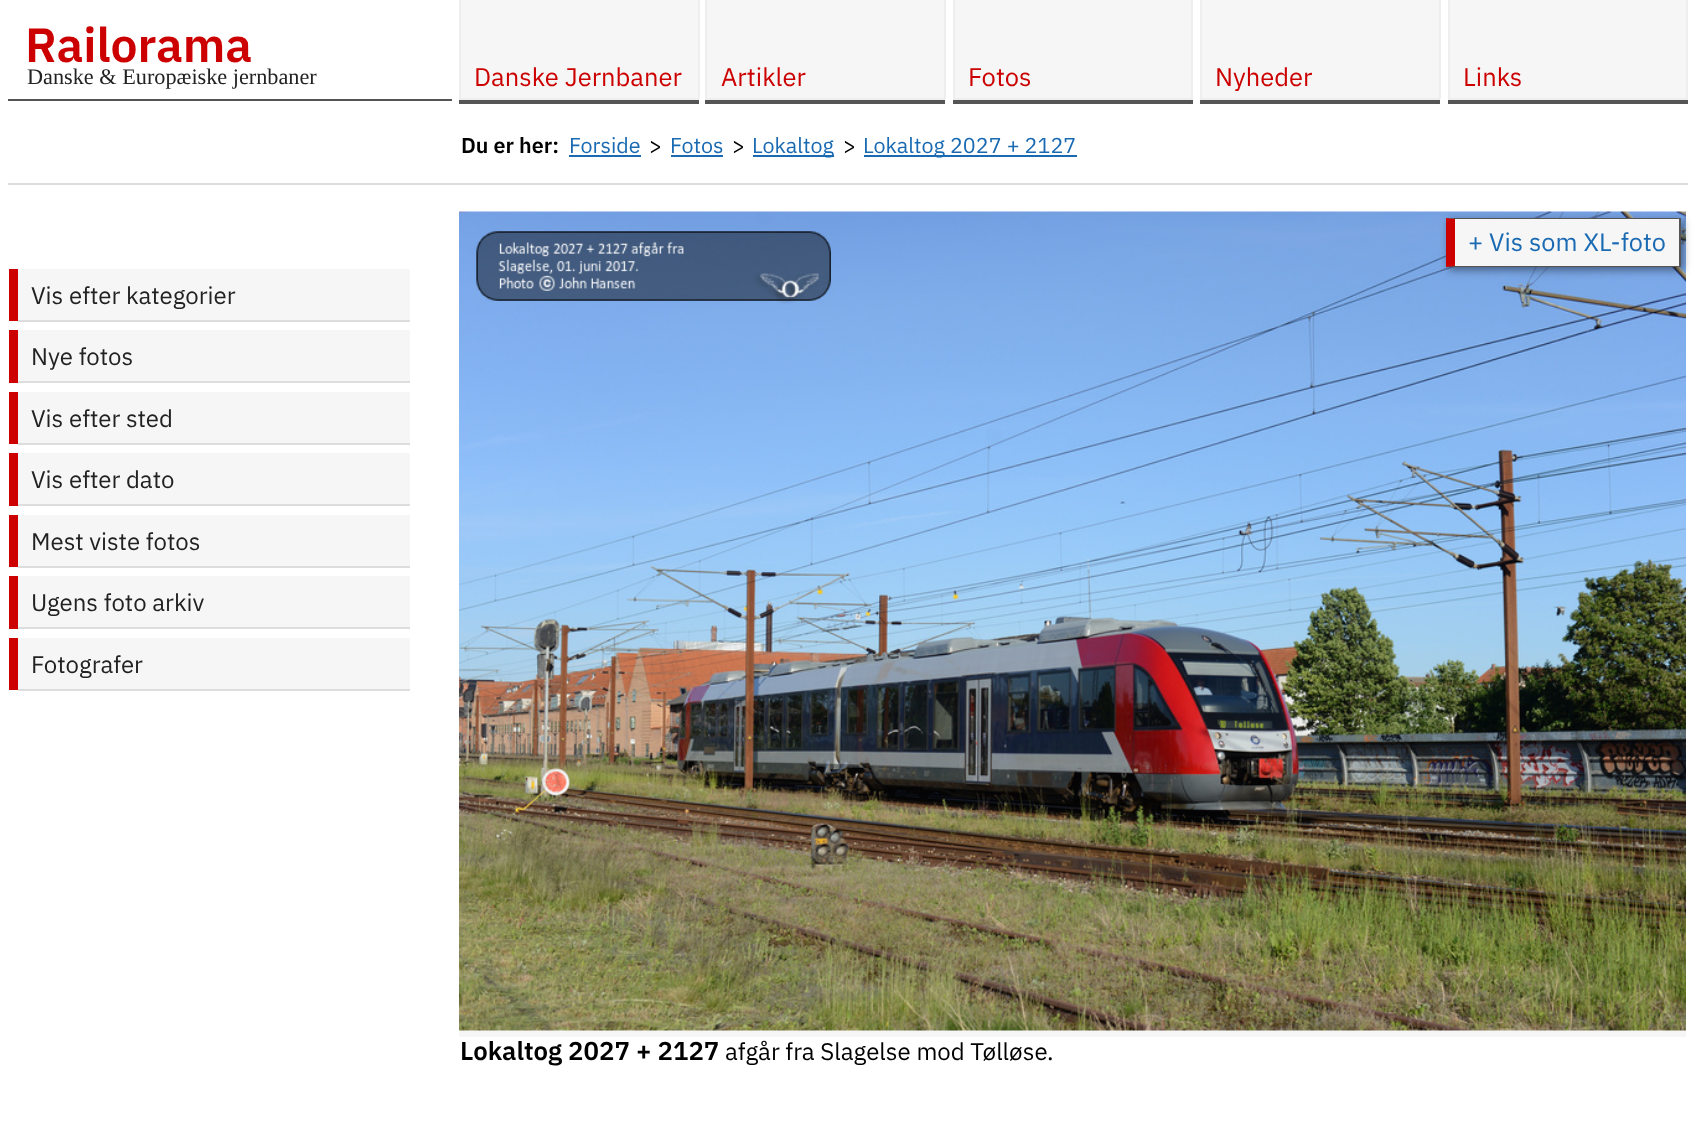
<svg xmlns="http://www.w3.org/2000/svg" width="1695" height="1140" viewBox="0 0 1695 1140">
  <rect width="100%" height="100%" fill="rgb(255,255,255)"/>
  <rect x="8" y="99" width="444" height="2" fill="rgb(85,85,85)"/>
  <text x="25" y="62" font-family="IBM Plex Sans" font-size="48" font-weight="600" fill="rgb(204,0,0)">Railorama</text>
  <text x="27" y="84" font-family="Liberation Serif" font-size="22.25" fill="rgb(34,34,34)">Danske &amp; Europæiske jernbaner</text>
  <rect x="461" y="0" width="237" height="98" fill="rgb(246,246,246)"/>
  <rect x="698" y="0" width="2" height="99" fill="rgb(238,238,238)"/>
  <rect x="459" y="98" width="240" height="2" fill="rgb(238,238,238)"/>
  <rect x="459" y="0" width="2" height="99" fill="rgb(238,238,238)"/>
  <text x="474" y="86" font-family="IBM Plex Sans" font-size="25.5" fill="rgb(204,0,0)">Danske Jernbaner</text>
  <rect x="459" y="100" width="240" height="4" fill="rgb(85,85,85)"/>
  <rect x="707" y="0" width="237" height="98" fill="rgb(246,246,246)"/>
  <rect x="944" y="0" width="2" height="99" fill="rgb(238,238,238)"/>
  <rect x="705" y="98" width="240" height="2" fill="rgb(238,238,238)"/>
  <rect x="705" y="0" width="2" height="99" fill="rgb(238,238,238)"/>
  <text x="721" y="86" font-family="IBM Plex Sans" font-size="25.5" fill="rgb(204,0,0)">Artikler</text>
  <rect x="705" y="100" width="240" height="4" fill="rgb(85,85,85)"/>
  <rect x="955" y="0" width="236" height="98" fill="rgb(246,246,246)"/>
  <rect x="1191" y="0" width="2" height="99" fill="rgb(238,238,238)"/>
  <rect x="953" y="98" width="240" height="2" fill="rgb(238,238,238)"/>
  <rect x="953" y="0" width="2" height="99" fill="rgb(238,238,238)"/>
  <text x="968" y="86" font-family="IBM Plex Sans" font-size="25.5" fill="rgb(204,0,0)">Fotos</text>
  <rect x="953" y="100" width="240" height="4" fill="rgb(85,85,85)"/>
  <rect x="1202" y="0" width="237" height="98" fill="rgb(246,246,246)"/>
  <rect x="1439" y="0" width="2" height="99" fill="rgb(238,238,238)"/>
  <rect x="1200" y="98" width="240" height="2" fill="rgb(238,238,238)"/>
  <rect x="1200" y="0" width="2" height="99" fill="rgb(238,238,238)"/>
  <text x="1215" y="86" font-family="IBM Plex Sans" font-size="25.5" fill="rgb(204,0,0)">Nyheder</text>
  <rect x="1200" y="100" width="240" height="4" fill="rgb(85,85,85)"/>
  <rect x="1450" y="0" width="236" height="98" fill="rgb(246,246,246)"/>
  <rect x="1686" y="0" width="2" height="99" fill="rgb(238,238,238)"/>
  <rect x="1448" y="98" width="240" height="2" fill="rgb(238,238,238)"/>
  <rect x="1448" y="0" width="2" height="99" fill="rgb(238,238,238)"/>
  <text x="1463" y="86" font-family="IBM Plex Sans" font-size="25.5" fill="rgb(204,0,0)">Links</text>
  <rect x="1448" y="100" width="240" height="4" fill="rgb(85,85,85)"/>
  <rect x="8" y="183" width="1680" height="2" fill="rgb(221,221,221)"/>
  <text x="461" y="153" font-family="IBM Plex Sans" font-size="21.5" font-weight="600" fill="rgb(0,0,0)">Du er her:</text>
  <text x="569" y="153" font-family="IBM Plex Sans" font-size="21.5" fill="rgb(26,106,179)">Forside</text>
  <rect x="569" y="155" width="72" height="2" fill="rgb(26,106,179)"/>
  <text x="649" y="153" font-family="IBM Plex Sans" font-size="21.5" fill="rgb(0,0,0)">&gt;</text>
  <text x="670" y="153" font-family="IBM Plex Sans" font-size="21.5" fill="rgb(26,106,179)">Fotos</text>
  <rect x="671" y="155" width="52" height="2" fill="rgb(26,106,179)"/>
  <text x="732" y="153" font-family="IBM Plex Sans" font-size="21.5" fill="rgb(0,0,0)">&gt;</text>
  <rect x="753" y="155" width="81" height="2" fill="rgb(26,106,179)"/>
  <text x="752" y="153" font-family="IBM Plex Sans" font-size="21.5" fill="rgb(26,106,179)">Lokaltog</text>
  <text x="843" y="153" font-family="IBM Plex Sans" font-size="21.5" fill="rgb(0,0,0)">&gt;</text>
  <rect x="864" y="155" width="213" height="2" fill="rgb(26,106,179)"/>
  <text x="863" y="153" font-family="IBM Plex Sans" font-size="21.5" fill="rgb(26,106,179)">Lokaltog 2027 + 2127</text>
  <rect x="9" y="269" width="9" height="52" fill="rgb(204,0,0)"/>
  <rect x="18" y="269" width="392" height="51" fill="rgb(246,246,246)"/>
  <rect x="18" y="320" width="392" height="2" fill="rgb(221,221,221)"/>
  <text x="31" y="304" font-family="IBM Plex Sans" font-size="24" fill="rgb(34,34,34)">Vis efter kategorier</text>
  <rect x="9" y="330" width="9" height="53" fill="rgb(204,0,0)"/>
  <rect x="18" y="330" width="392" height="51" fill="rgb(246,246,246)"/>
  <rect x="18" y="381" width="392" height="2" fill="rgb(221,221,221)"/>
  <text x="31" y="365" font-family="IBM Plex Sans" font-size="24" fill="rgb(34,34,34)">Nye fotos</text>
  <rect x="9" y="392" width="9" height="52" fill="rgb(204,0,0)"/>
  <rect x="18" y="392" width="392" height="51" fill="rgb(246,246,246)"/>
  <rect x="18" y="443" width="392" height="2" fill="rgb(221,221,221)"/>
  <text x="31" y="427" font-family="IBM Plex Sans" font-size="24" fill="rgb(34,34,34)">Vis efter sted</text>
  <rect x="9" y="453" width="9" height="53" fill="rgb(204,0,0)"/>
  <rect x="18" y="453" width="392" height="51" fill="rgb(246,246,246)"/>
  <rect x="18" y="504" width="392" height="2" fill="rgb(221,221,221)"/>
  <text x="31" y="488" font-family="IBM Plex Sans" font-size="24" fill="rgb(34,34,34)">Vis efter dato</text>
  <rect x="9" y="515" width="9" height="52" fill="rgb(204,0,0)"/>
  <rect x="18" y="515" width="392" height="51" fill="rgb(246,246,246)"/>
  <rect x="18" y="566" width="392" height="2" fill="rgb(221,221,221)"/>
  <text x="31" y="550" font-family="IBM Plex Sans" font-size="24" fill="rgb(34,34,34)">Mest viste fotos</text>
  <rect x="9" y="576" width="9" height="53" fill="rgb(204,0,0)"/>
  <rect x="18" y="576" width="392" height="51" fill="rgb(246,246,246)"/>
  <rect x="18" y="627" width="392" height="2" fill="rgb(221,221,221)"/>
  <text x="31" y="611" font-family="IBM Plex Sans" font-size="24" fill="rgb(34,34,34)">Ugens foto arkiv</text>
  <rect x="9" y="638" width="9" height="52" fill="rgb(204,0,0)"/>
  <rect x="18" y="638" width="392" height="51" fill="rgb(246,246,246)"/>
  <rect x="18" y="689" width="392" height="2" fill="rgb(221,221,221)"/>
  <text x="31" y="673" font-family="IBM Plex Sans" font-size="24" fill="rgb(34,34,34)">Fotografer</text>
  <rect x="459" y="1030" width="1227" height="7" fill="rgb(246,246,246)"/>
  <image x="459" y="211" width="1227" height="820" href="pic1.png"/>
  <rect x="1449" y="221" width="234" height="49" fill="rgba(0,0,0,0.45)" filter="blur(4px)"/>
  <rect x="1455" y="219" width="224" height="47" fill="rgb(246,246,246)"/>
  <path d="M1446 218H1680L1678 219H1455Z" fill="rgb(85,85,85)"/>
  <rect x="1679" y="218" width="2" height="49" fill="rgb(85,85,85)"/>
  <path d="M1680 267H1446L1455 266H1678Z" fill="rgb(85,85,85)"/>
  <path d="M1446 267V218L1455 219V266Z" fill="rgb(204,0,0)"/>
  <text x="1468" y="251" font-family="IBM Plex Sans" font-size="25.25" fill="rgb(26,106,179)">+ Vis som XL-foto</text>
  <text x="460" y="1060" font-family="IBM Plex Sans" font-size="25.75" font-weight="600" fill="rgb(0,0,0)">Lokaltog 2027 + 2127</text>
  <text x="725" y="1060" font-family="IBM Plex Sans" font-size="24" fill="rgb(0,0,0)">afgår fra Slagelse mod Tølløse.</text>
</svg>
